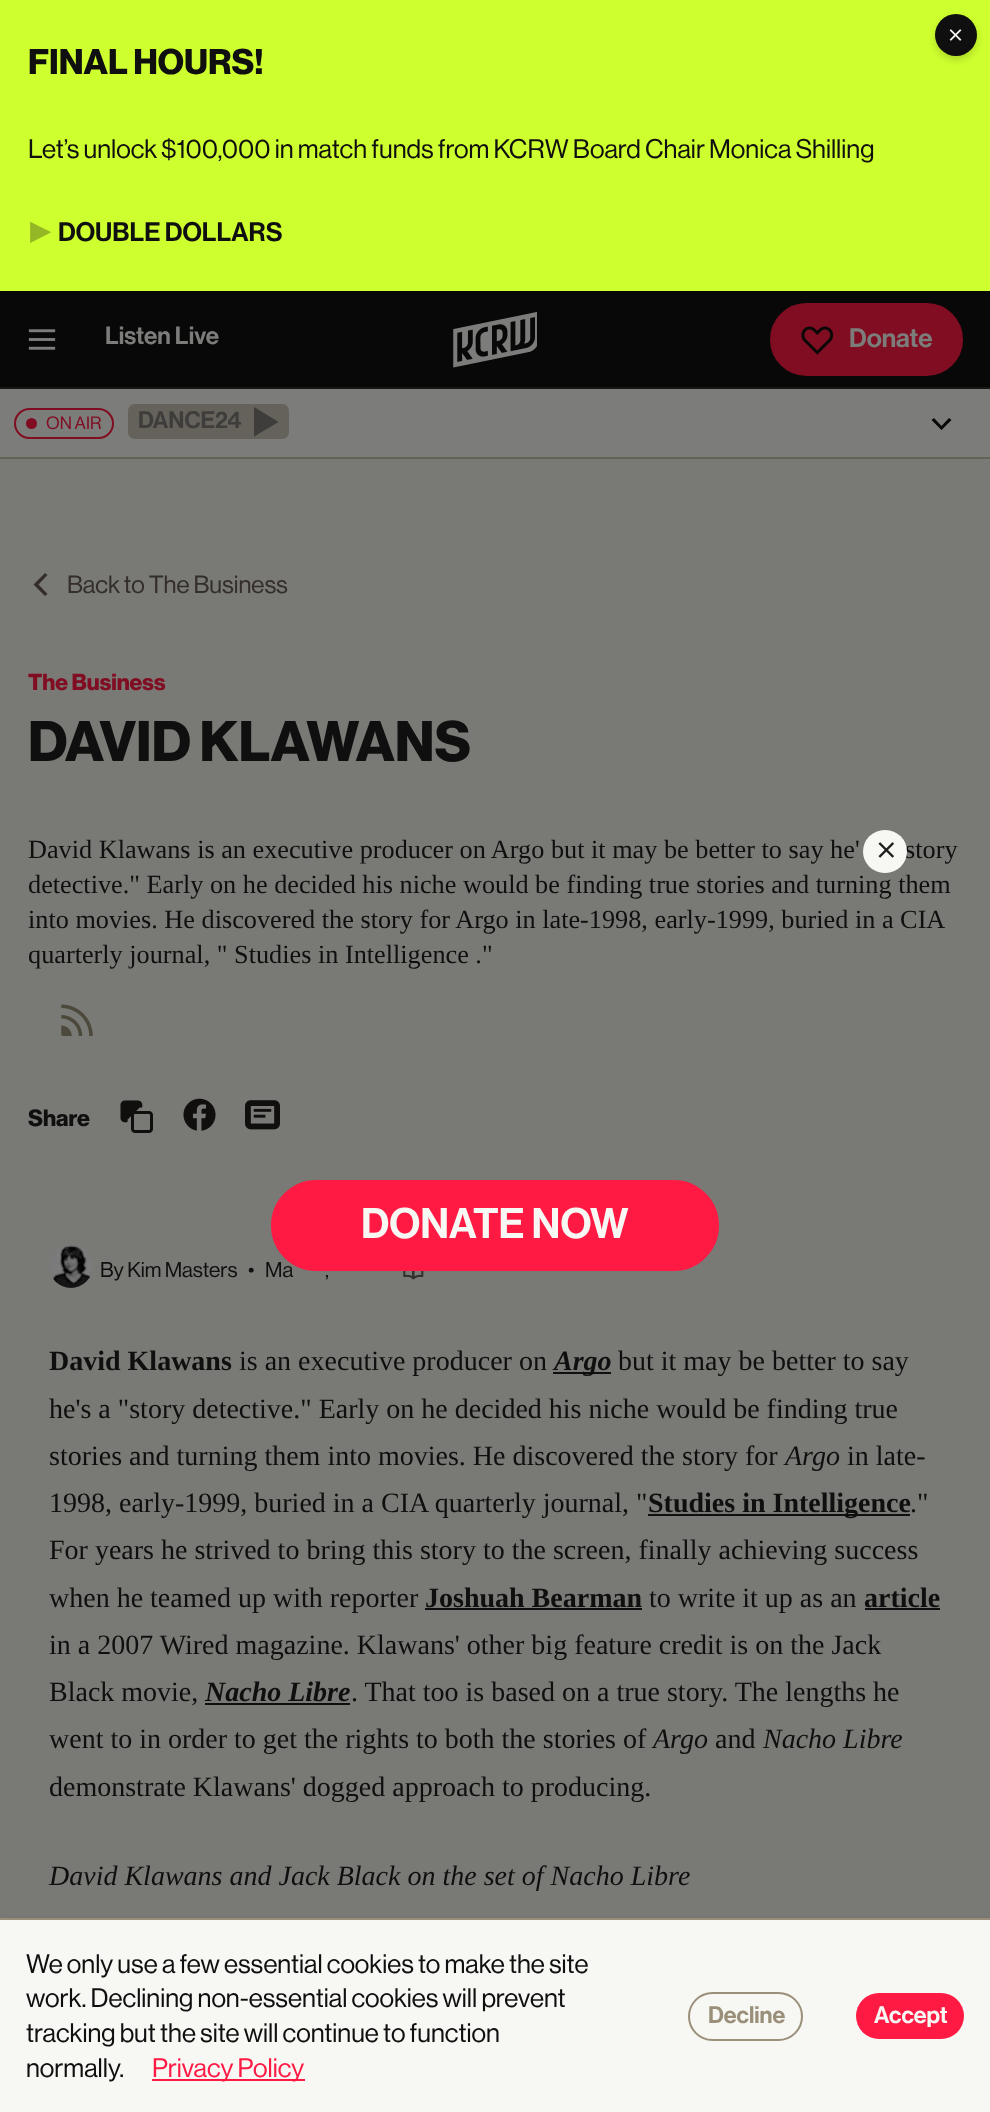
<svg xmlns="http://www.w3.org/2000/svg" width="990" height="2112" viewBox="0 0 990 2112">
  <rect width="100%" height="100%" fill="rgb(121,121,117)"/>
  <rect x="0" y="0" width="990" height="291" fill="rgb(206,255,46)"/>
  <text x="28" y="74" font-family="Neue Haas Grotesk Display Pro" font-size="35" font-weight="bold" fill="rgb(16,15,15)">FINAL HOURS!</text>
  <rect x="935" y="18" width="42" height="42" rx="21" fill="rgba(10,10,10,0.16)" filter="blur(3.5px)"/>
  <circle cx="956" cy="35" r="21" fill="rgb(15,15,15)"/>
  <image x="949" y="29" width="13" height="12" href="pic1.png"/>
  <text x="28" y="158" font-family="Neue Haas Grotesk Display Pro" font-size="26.25" font-weight="500" fill="rgb(16,15,15)">Let’s unlock $100,000 in match funds from KCRW Board Chair Monica Shilling</text>
  <text x="30" y="243" font-family="DejaVu Sans" font-size="39" font-weight="bold" fill="rgb(149,183,37)">▸</text>
  <text x="58" y="241" font-family="'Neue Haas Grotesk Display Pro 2'" font-size="26.25" font-weight="500" fill="rgb(16,15,15)">DOUBLE DOLLARS</text>
  <rect x="0" y="291" width="990" height="96" fill="rgb(8,8,8)"/>
  <rect x="0" y="387" width="990" height="2" fill="rgb(22,22,21)"/>
  <image x="28" y="329" width="28" height="21" href="pic2.png"/>
  <text x="105" y="344" font-family="'Neue Haas Grotesk Display Pro 2'" font-size="24.5" font-weight="500" fill="rgb(124,124,122)">Listen Live</text>
  <image x="453" y="312" width="84" height="56" href="pic3.png"/>
  <rect x="771" y="304" width="191" height="71" rx="35.5" fill="rgb(128,13,34)" stroke="rgb(128,13,34)" stroke-width="2"/>
  <image x="801" y="326" width="33" height="29" href="pic4.png"/>
  <text x="849" y="347" font-family="'Neue Haas Grotesk Display Pro 2'" font-size="26.25" font-weight="500" fill="rgb(124,124,122)">Donate</text>
  <rect x="0" y="389" width="990" height="68" fill="rgb(124,124,122)"/>
  <rect x="0" y="457" width="990" height="2" fill="rgb(100,98,87)"/>
  <rect x="15" y="409" width="98" height="29" rx="14.5" fill="none" stroke="rgb(128,13,34)" stroke-width="2"/>
  <circle cx="31.5" cy="423.5" r="5.5" fill="rgb(128,13,34)"/>
  <text x="46" y="429" font-family="Neue Haas Grotesk Display Pro" font-size="17.5" font-weight="500" fill="rgb(128,13,34)">ON AIR</text>
  <rect x="128" y="404" width="161" height="35" rx="7" fill="rgb(120,120,120)"/>
  <rect x="128" y="404" width="161" height="35" rx="7" fill="rgba(91,89,77,0.7)"/>
  <text x="138" y="428" font-family="'Neue Haas Grotesk Display Pro 2'" font-size="23.5" font-weight="500" fill="rgb(63,61,59)">DANCE24</text>
  <path d="M254 407V436.5L278.5 422Z" fill="rgb(63,61,59)"/>
  <path d="M931.5 420L934 418L941.5 426L949 418L951.5 420L941.5 430Z" fill="rgb(8,8,8)" fill-rule="evenodd"/>
  <path d="M45 573L47.5 575L38.5 584.5L47.5 594L45 596L33.5 584.5Z" fill="rgb(51,46,42)" fill-rule="evenodd"/>
  <text x="67" y="593" font-family="Neue Haas Grotesk Display Pro" font-size="24.5" font-weight="500" fill="rgb(51,46,42)">Back to The Business</text>
  <text x="28" y="690" font-family="Neue Haas Grotesk Display Pro" font-size="22.75" font-weight="bold" fill="rgb(128,13,34)">The Business</text>
  <text x="28" y="761" font-family="Neue Haas Grotesk Display Pro" font-size="56" font-weight="bold" fill="rgb(16,15,15)">DAVID KLAWANS</text>
  <g font-family="Liberation Serif" font-size="26.25" fill="rgb(16,15,15)">
    <text x="28" y="858">David Klawans is an executive producer on Argo but it may be better to say he'</text>
    <text x="905" y="858">story</text>
    <text>
      <tspan x="28" y="893">detective." Early on he decided his niche would be finding true stories and turning them</tspan>
      <tspan x="28" y="928">into movies. He discovered the story for Argo in late-1998, early-1999, buried in a CIA</tspan>
      <tspan x="28" y="963">quarterly journal, " Studies in Intelligence ."</tspan>
    </text>
  </g>
  <image x="61" y="1004" width="32" height="32" href="pic5.png"/>
  <text x="28" y="1126" font-family="Neue Haas Grotesk Display Pro" font-size="23" font-weight="bold" fill="rgb(16,15,15)">Share</text>
  <image x="120" y="1100" width="33" height="33" href="pic6.png"/>
  <image x="183" y="1098" width="33" height="33" href="pic7.png"/>
  <image x="245" y="1100" width="35" height="30" href="pic8.png"/>
  <image x="49" y="1244" width="44" height="44" href="pic9.png"/>
  <g font-family="Neue Haas Grotesk Display Pro" font-size="21" font-weight="500" fill="rgb(16,15,15)">
    <text x="100" y="1277">By Kim Masters</text>
    <text x="248" y="1277">•</text>
    <text x="265" y="1277">Ma</text>
    <text x="325" y="1277">,</text>
  </g>
  <image x="403" y="1271" width="21" height="9" href="pic10.png"/>
  <text x="49" y="1370" font-family="Liberation Serif" font-size="28" font-weight="bold" fill="rgb(16,15,15)">David Klawans</text>
  <text x="239" y="1370" font-family="Liberation Serif" font-size="28" fill="rgb(16,15,15)">is an executive producer on</text>
  <rect x="553" y="1372" width="58" height="2" fill="rgb(16,15,15)"/>
  <text x="554" y="1370" font-family="Liberation Serif" font-size="28" font-weight="bold" font-style="italic" fill="rgb(16,15,15)">Argo</text>
  <g font-family="Liberation Serif" font-size="28" fill="rgb(16,15,15)">
    <text x="618" y="1370">but it may be better to say</text>
    <text>
      <tspan x="49" y="1418">he's a "story detective." Early on he decided his niche would be finding true</tspan>
      <tspan x="49" y="1465">stories and turning them into movies. He discovered the story for</tspan>
    </text>
  </g>
  <text x="785" y="1465" font-family="Liberation Serif" font-size="28" font-style="italic" fill="rgb(16,15,15)">Argo</text>
  <g font-family="Liberation Serif" font-size="28" fill="rgb(16,15,15)">
    <text x="847" y="1465">in late-</text>
    <text x="49" y="1512">1998, early-1999, buried in a CIA quarterly journal, "</text>
  </g>
  <rect x="648" y="1514" width="262" height="2" fill="rgb(16,15,15)"/>
  <text x="648" y="1512" font-family="Liberation Serif" font-size="28" font-weight="bold" fill="rgb(16,15,15)">Studies in Intelligence</text>
  <g font-family="Liberation Serif" font-size="28" fill="rgb(16,15,15)">
    <text x="910" y="1512">."</text>
    <text>
      <tspan x="49" y="1559">For years he strived to bring this story to the screen, finally achieving success</tspan>
      <tspan x="49" y="1607">when he teamed up with reporter</tspan>
    </text>
  </g>
  <text x="425" y="1607" font-family="Liberation Serif" font-size="28" font-weight="bold" fill="rgb(16,15,15)">Joshuah Bearman</text>
  <rect x="425" y="1608" width="217" height="2" fill="rgb(16,15,15)"/>
  <text x="649" y="1607" font-family="Liberation Serif" font-size="28" fill="rgb(16,15,15)">to write it up as an</text>
  <text x="864" y="1607" font-family="Liberation Serif" font-size="28" font-weight="bold" fill="rgb(16,15,15)">article</text>
  <rect x="865" y="1608" width="75" height="2" fill="rgb(16,15,15)"/>
  <g font-family="Liberation Serif" font-size="28" fill="rgb(16,15,15)">
    <text>
      <tspan x="49" y="1654">in a 2007 Wired magazine. Klawans' other big feature credit is on the Jack</tspan>
      <tspan x="49" y="1701">Black movie,</tspan>
    </text>
  </g>
  <text x="205" y="1701" font-family="Liberation Serif" font-size="28" font-weight="bold" font-style="italic" fill="rgb(16,15,15)">Nacho Libre</text>
  <rect x="205" y="1703" width="145" height="2" fill="rgb(16,15,15)"/>
  <g font-family="Liberation Serif" font-size="28" fill="rgb(16,15,15)">
    <text x="351" y="1701">. That too is based on a true story. The lengths he</text>
    <text x="49" y="1748">went to in order to get the rights to both the stories of</text>
  </g>
  <text x="653" y="1748" font-family="Liberation Serif" font-size="28" font-style="italic" fill="rgb(16,15,15)">Argo</text>
  <text x="715" y="1748" font-family="Liberation Serif" font-size="28" fill="rgb(16,15,15)">and</text>
  <text x="763" y="1748" font-family="Liberation Serif" font-size="28" font-style="italic" fill="rgb(16,15,15)">Nacho Libre</text>
  <text x="49" y="1796" font-family="Liberation Serif" font-size="28" fill="rgb(16,15,15)">demonstrate Klawans' dogged approach to producing.</text>
  <text x="49" y="1885" font-family="Liberation Serif" font-size="28" font-style="italic" fill="rgb(16,15,15)">David Klawans and Jack Black on the set of Nacho Libre</text>
  <rect x="863" y="830" width="44" height="43" rx="21.5" fill="rgb(247,247,243)"/>
  <image x="878" y="842" width="16" height="16" href="pic11.png"/>
  <rect x="273" y="1182" width="444" height="87" rx="43.5" fill="rgb(255,26,68)" stroke="rgb(255,26,68)" stroke-width="4"/>
  <text x="361" y="1238" font-family="'Neue Haas Grotesk Display Pro 2'" font-size="42" font-weight="500" fill="rgb(247,247,243)">DONATE NOW</text>
  <rect x="0" y="1922" width="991" height="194" fill="rgba(103,5,17,0.25)" filter="blur(3.5px)"/>
  <rect x="0" y="1920" width="990" height="192" fill="rgb(247,247,243)"/>
  <rect x="0" y="1918" width="990" height="2" fill="rgb(154,144,121)"/>
  <g font-family="Neue Haas Grotesk Display Pro" font-size="26.25" font-weight="500" fill="rgb(16,15,15)">
    <text>
      <tspan x="26" y="1973">We only use a few essential cookies to make the site</tspan>
      <tspan x="26" y="2007">work. Declining non-essential cookies will prevent</tspan>
      <tspan x="26" y="2042">tracking but the site will continue to function</tspan>
      <tspan x="26" y="2077">normally.</tspan>
    </text>
  </g>
  <rect x="152" y="2079" width="153" height="2" fill="rgb(255,26,68)"/>
  <text x="152" y="2077" font-family="Neue Haas Grotesk Display Pro" font-size="26.25" font-weight="500" fill="rgb(255,26,68)">Privacy Policy</text>
  <rect x="689" y="1993" width="113" height="47" rx="23.5" fill="none" stroke="rgb(154,144,121)" stroke-width="2"/>
  <text x="708" y="2023" font-family="'Neue Haas Grotesk Display Pro 2'" font-size="23.5" font-weight="500" fill="rgb(154,144,121)">Decline</text>
  <rect x="856" y="1993" width="108" height="46" rx="23" fill="rgb(255,26,68)"/>
  <text x="874" y="2023" font-family="'Neue Haas Grotesk Display Pro 2'" font-size="23.5" font-weight="500" fill="rgb(247,247,243)">Accept</text>
</svg>
